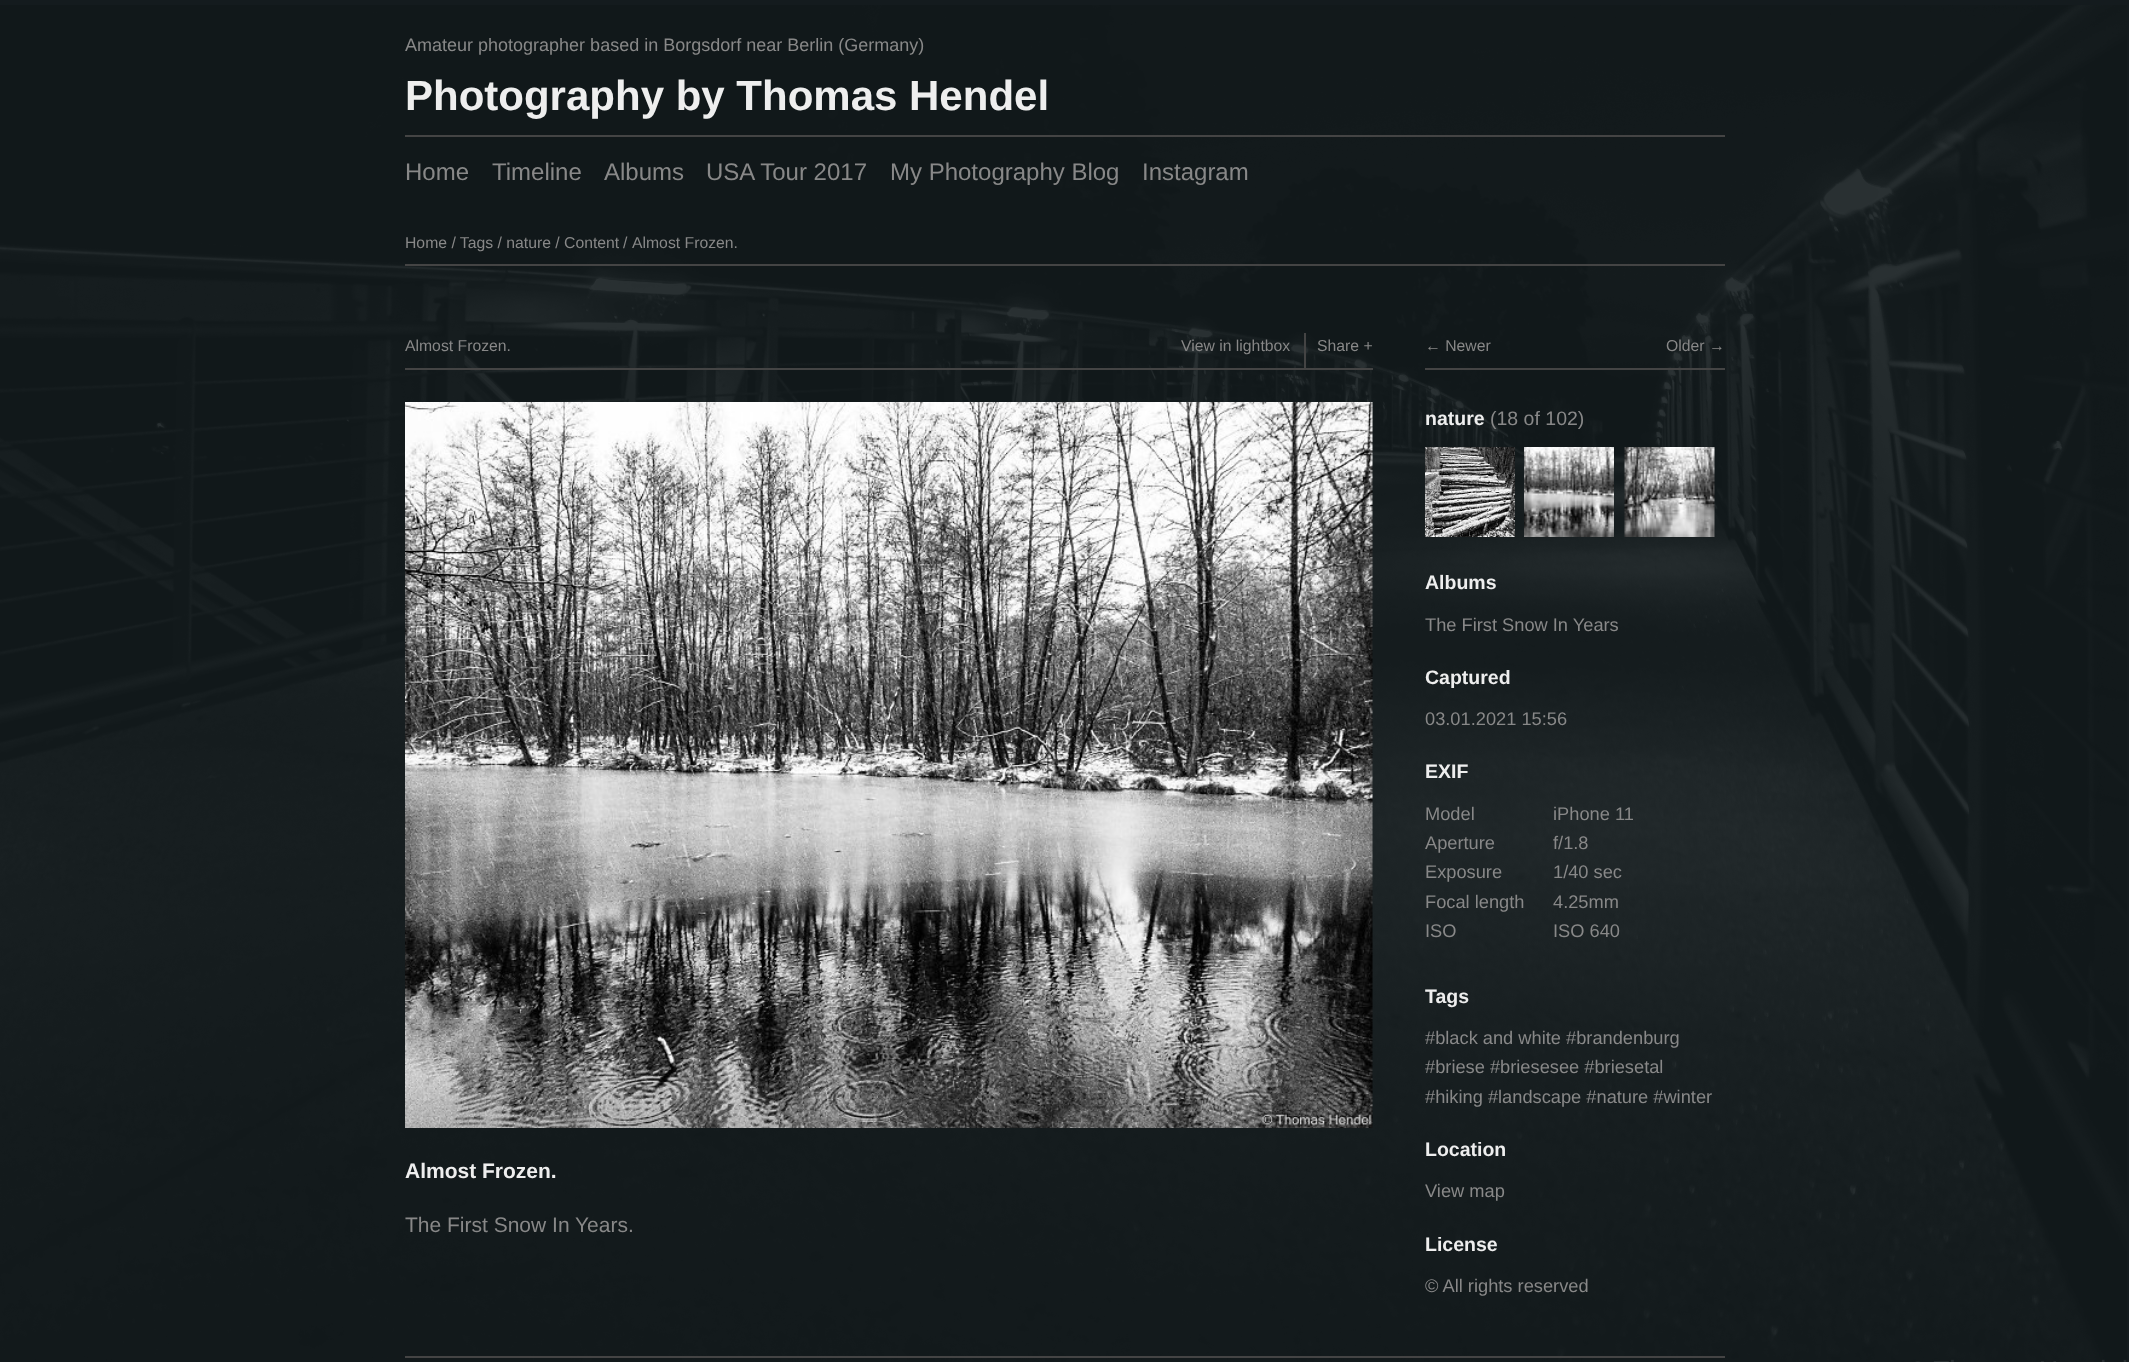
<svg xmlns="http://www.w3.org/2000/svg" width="2129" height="1362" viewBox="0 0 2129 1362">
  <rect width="100%" height="100%" fill="rgb(20,27,30)"/>
  <image x="0" y="5" width="2127" height="1357" href="pic1.png"/>
  <text x="405" y="51" font-family="Liberation Sans" font-size="18" fill="rgb(136,136,136)">Amateur photographer based in Borgsdorf near Berlin (Germany)</text>
  <text x="405" y="110" font-family="Liberation Sans" font-size="42" font-weight="bold" fill="rgb(238,238,238)">Photography by Thomas Hendel</text>
  <rect x="405" y="135" width="1320" height="2" fill="rgb(68,68,68)"/>
  <g font-family="Liberation Sans" font-size="24" fill="rgb(136,136,136)">
    <text x="405" y="180">Home</text>
    <text x="492" y="180">Timeline</text>
    <text x="604" y="180">Albums</text>
    <text x="706" y="180">USA Tour 2017</text>
    <text x="890" y="180">My Photography Blog</text>
    <text x="1142" y="180">Instagram</text>
  </g>
  <rect x="405" y="264" width="1320" height="2" fill="rgb(68,68,68)"/>
  <g font-family="Liberation Sans" font-size="15.75" fill="rgb(136,136,136)">
    <text x="405" y="248">Home / Tags / nature / Content</text>
    <text x="623" y="248">/</text>
    <text x="632" y="248">Almost Frozen.</text>
  </g>
  <rect x="405" y="368" width="968" height="2" fill="rgb(68,68,68)"/>
  <g font-family="Liberation Sans" font-size="15.75" fill="rgb(136,136,136)">
    <text x="405" y="351">Almost Frozen.</text>
    <text x="1181" y="351">View in lightbox</text>
  </g>
  <rect x="1304" y="333" width="2" height="35" fill="rgb(68,68,68)"/>
  <text x="1317" y="351" font-family="Liberation Sans" font-size="15.75" fill="rgb(136,136,136)">Share +</text>
  <image x="405" y="402" width="968" height="726" href="pic2.png"/>
  <text x="405" y="1178" font-family="Liberation Sans" font-size="21" font-weight="bold" fill="rgb(238,238,238)">Almost Frozen.</text>
  <text x="405" y="1232" font-family="Liberation Sans" font-size="21" fill="rgb(136,136,136)">The First Snow In Years.</text>
  <rect x="1425" y="368" width="300" height="2" fill="rgb(68,68,68)"/>
  <g font-family="Liberation Sans" font-size="15.75" fill="rgb(136,136,136)">
    <text x="1425" y="351">← Newer</text>
    <text x="1666" y="351">Older →</text>
  </g>
  <text x="1425" y="425" font-family="Liberation Sans" font-size="19.5" font-weight="bold" fill="rgb(238,238,238)">nature</text>
  <text x="1490" y="425" font-family="Liberation Sans" font-size="19.5" fill="rgb(136,136,136)">(18 of 102)</text>
  <image x="1425" y="447" width="90" height="90" href="pic3.png"/>
  <image x="1524" y="447" width="90" height="90" href="pic4.png"/>
  <image x="1624" y="447" width="91" height="90" href="pic5.png"/>
  <text x="1425" y="589" font-family="Liberation Sans" font-size="19.5" font-weight="bold" fill="rgb(238,238,238)">Albums</text>
  <text x="1425" y="631" font-family="Liberation Sans" font-size="18.25" fill="rgb(136,136,136)">The First Snow In Years</text>
  <text x="1425" y="684" font-family="Liberation Sans" font-size="19.5" font-weight="bold" fill="rgb(238,238,238)">Captured</text>
  <text x="1425" y="725" font-family="Liberation Sans" font-size="18.25" fill="rgb(136,136,136)">03.01.2021 15:56</text>
  <text x="1425" y="778" font-family="Liberation Sans" font-size="19.5" font-weight="bold" fill="rgb(238,238,238)">EXIF</text>
  <g font-family="Liberation Sans" font-size="18.25" fill="rgb(136,136,136)">
    <text x="1425" y="820">Model</text>
    <text x="1553" y="820">iPhone 11</text>
    <text x="1425" y="849">Aperture</text>
    <text x="1553" y="849">f/1.8</text>
    <text x="1425" y="878">Exposure</text>
    <text x="1553" y="878">1/40 sec</text>
    <text x="1425" y="908">Focal length</text>
    <text x="1553" y="908">4.25mm</text>
    <text x="1425" y="937">ISO</text>
    <text x="1553" y="937">ISO 640</text>
  </g>
  <text x="1425" y="1003" font-family="Liberation Sans" font-size="19.5" font-weight="bold" fill="rgb(238,238,238)">Tags</text>
  <g font-family="Liberation Sans" font-size="18.25" fill="rgb(136,136,136)">
    <text>
      <tspan x="1425" y="1044">#black and white #brandenburg</tspan>
      <tspan x="1425" y="1073">#briese #briesesee #briesetal</tspan>
      <tspan x="1425" y="1103">#hiking #landscape #nature #winter</tspan>
    </text>
  </g>
  <text x="1425" y="1156" font-family="Liberation Sans" font-size="19.5" font-weight="bold" fill="rgb(238,238,238)">Location</text>
  <text x="1425" y="1197" font-family="Liberation Sans" font-size="18.25" fill="rgb(136,136,136)">View map</text>
  <text x="1425" y="1251" font-family="Liberation Sans" font-size="19.5" font-weight="bold" fill="rgb(238,238,238)">License</text>
  <text x="1425" y="1292" font-family="Liberation Sans" font-size="18.25" fill="rgb(136,136,136)">© All rights reserved</text>
  <rect x="405" y="1356" width="1320" height="2" fill="rgb(68,68,68)"/>
</svg>
